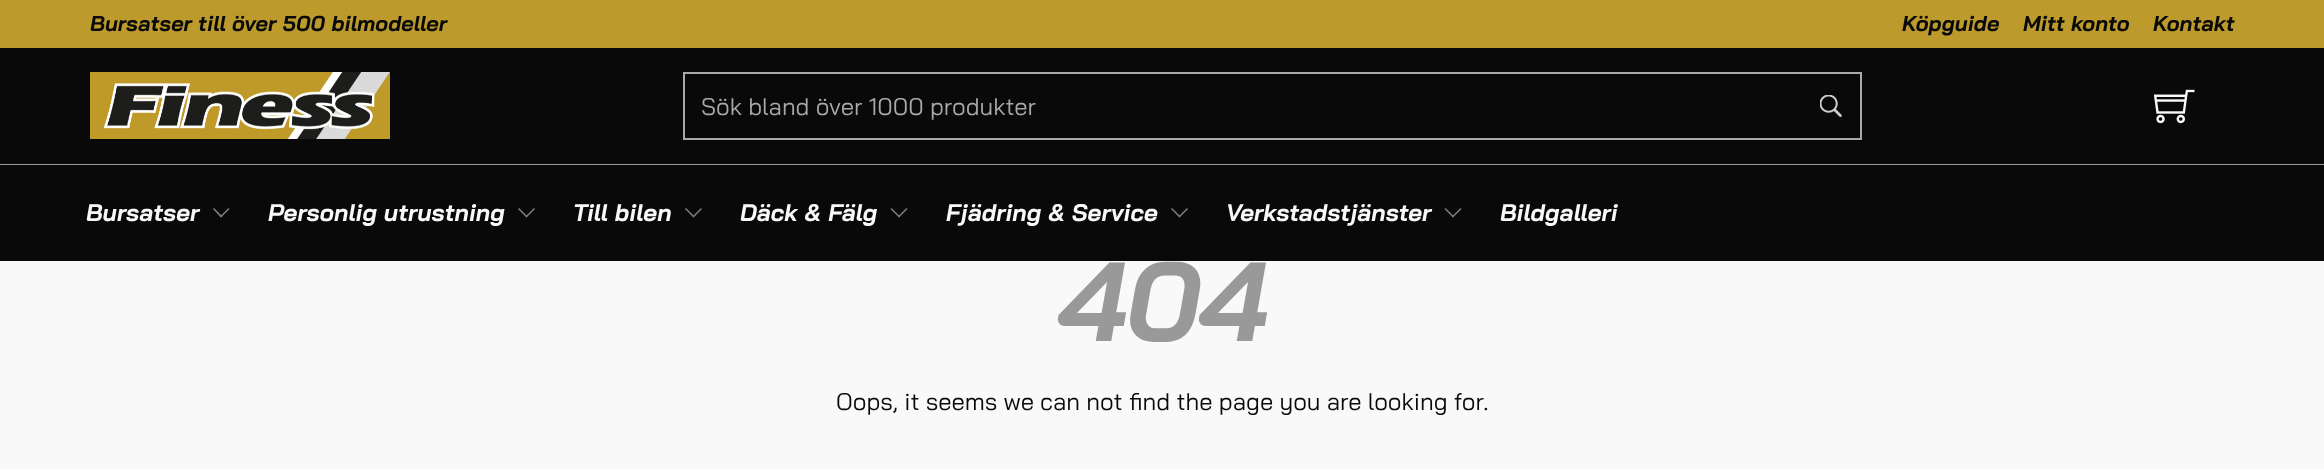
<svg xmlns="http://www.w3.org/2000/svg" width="2324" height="469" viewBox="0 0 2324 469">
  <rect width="100%" height="100%" fill="rgb(249,249,249)"/>
  <rect x="0" y="0" width="2324" height="48" fill="rgb(188,154,43)"/>
  <g font-family="Bai Jamjuree" font-size="21.6" font-weight="bold" font-style="italic" fill="rgb(9,9,9)">
    <text x="90" y="31">Bursatser till över 500 bilmodeller</text>
    <text x="1902" y="31">Köpguide</text>
    <text x="2023" y="31">Mitt konto</text>
    <text x="2153" y="31">Kontakt</text>
  </g>
  <rect x="0" y="48" width="2324" height="116" fill="rgb(9,9,9)"/>
  <image x="90" y="72" width="300" height="67" href="pic1.png"/>
  <image x="1820" y="95" width="22" height="22" href="pic2.png"/>
  <rect x="684" y="73" width="1177" height="66" fill="none" stroke="rgb(169,169,169)" stroke-width="2"/>
  <text x="701" y="115" font-family="Bai Jamjuree" font-size="24" fill="rgb(169,169,169)">Sök bland över 1000 produkter</text>
  <image x="2153" y="89" width="42" height="35" href="pic3.png"/>
  <rect x="0" y="164" width="2324" height="1" fill="rgb(153,153,153)"/>
  <rect x="0" y="165" width="2324" height="96" fill="rgb(9,9,9)"/>
  <text x="86" y="221" font-family="Bai Jamjuree" font-size="24" font-weight="bold" font-style="italic" fill="rgb(249,249,249)">Bursatser</text>
  <path d="M228.5 208L229.5 209L221 217.5L220 216.5Z" fill="rgb(129,129,129)"/>
  <path d="M214 208L222.5 216.5L221 217.5L213 209Z" fill="rgb(129,129,129)"/>
  <text x="268" y="221" font-family="Bai Jamjuree" font-size="24" font-weight="bold" font-style="italic" fill="rgb(249,249,249)">Personlig utrustning</text>
  <path d="M534 208L535 209L526.5 217.5L525.5 216.5Z" fill="rgb(129,129,129)"/>
  <path d="M519 208L527.5 216.5L526.5 217.5L518 209Z" fill="rgb(129,129,129)"/>
  <text x="573" y="221" font-family="Bai Jamjuree" font-size="24" font-weight="bold" font-style="italic" fill="rgb(249,249,249)">Till bilen</text>
  <path d="M701 208L702 209L693.5 217.5L692.5 216.5Z" fill="rgb(129,129,129)"/>
  <path d="M686 208L694.5 216.5L693.5 217.5L685 209Z" fill="rgb(129,129,129)"/>
  <text x="740" y="221" font-family="Bai Jamjuree" font-size="24" font-weight="bold" font-style="italic" fill="rgb(249,249,249)">Däck &amp; Fälg</text>
  <path d="M906.5 208L907.5 209L899 217.5L898 216.5Z" fill="rgb(129,129,129)"/>
  <path d="M891.5 208L900 216.5L899 217.5L890.5 209Z" fill="rgb(129,129,129)"/>
  <text x="946" y="221" font-family="Bai Jamjuree" font-size="24" font-weight="bold" font-style="italic" fill="rgb(249,249,249)">Fjädring &amp; Service</text>
  <path d="M1187 208L1188 209L1179.5 217.5L1178.5 216.5Z" fill="rgb(129,129,129)"/>
  <path d="M1172 208L1180.5 216.5L1179.5 217.5L1171 209Z" fill="rgb(129,129,129)"/>
  <text x="1226" y="221" font-family="Bai Jamjuree" font-size="24" font-weight="bold" font-style="italic" fill="rgb(249,249,249)">Verkstadstjänster</text>
  <path d="M1460.5 208L1461.5 209L1453 217.5L1452 216.5Z" fill="rgb(129,129,129)"/>
  <path d="M1445.5 208L1454 216.5L1453 217.5L1444.5 209Z" fill="rgb(129,129,129)"/>
  <text x="1500" y="221" font-family="Bai Jamjuree" font-size="24" font-weight="bold" font-style="italic" fill="rgb(249,249,249)">Bildgalleri</text>
  <text x="1058" y="341" font-family="Bai Jamjuree" font-size="112" font-weight="bold" font-style="italic" letter-spacing="-2" fill="rgb(153,153,153)">404</text>
  <text x="836" y="410" font-family="Bai Jamjuree" font-size="24" fill="rgb(9,9,9)">Oops, it seems we can not find the page you are looking for.</text>
</svg>
